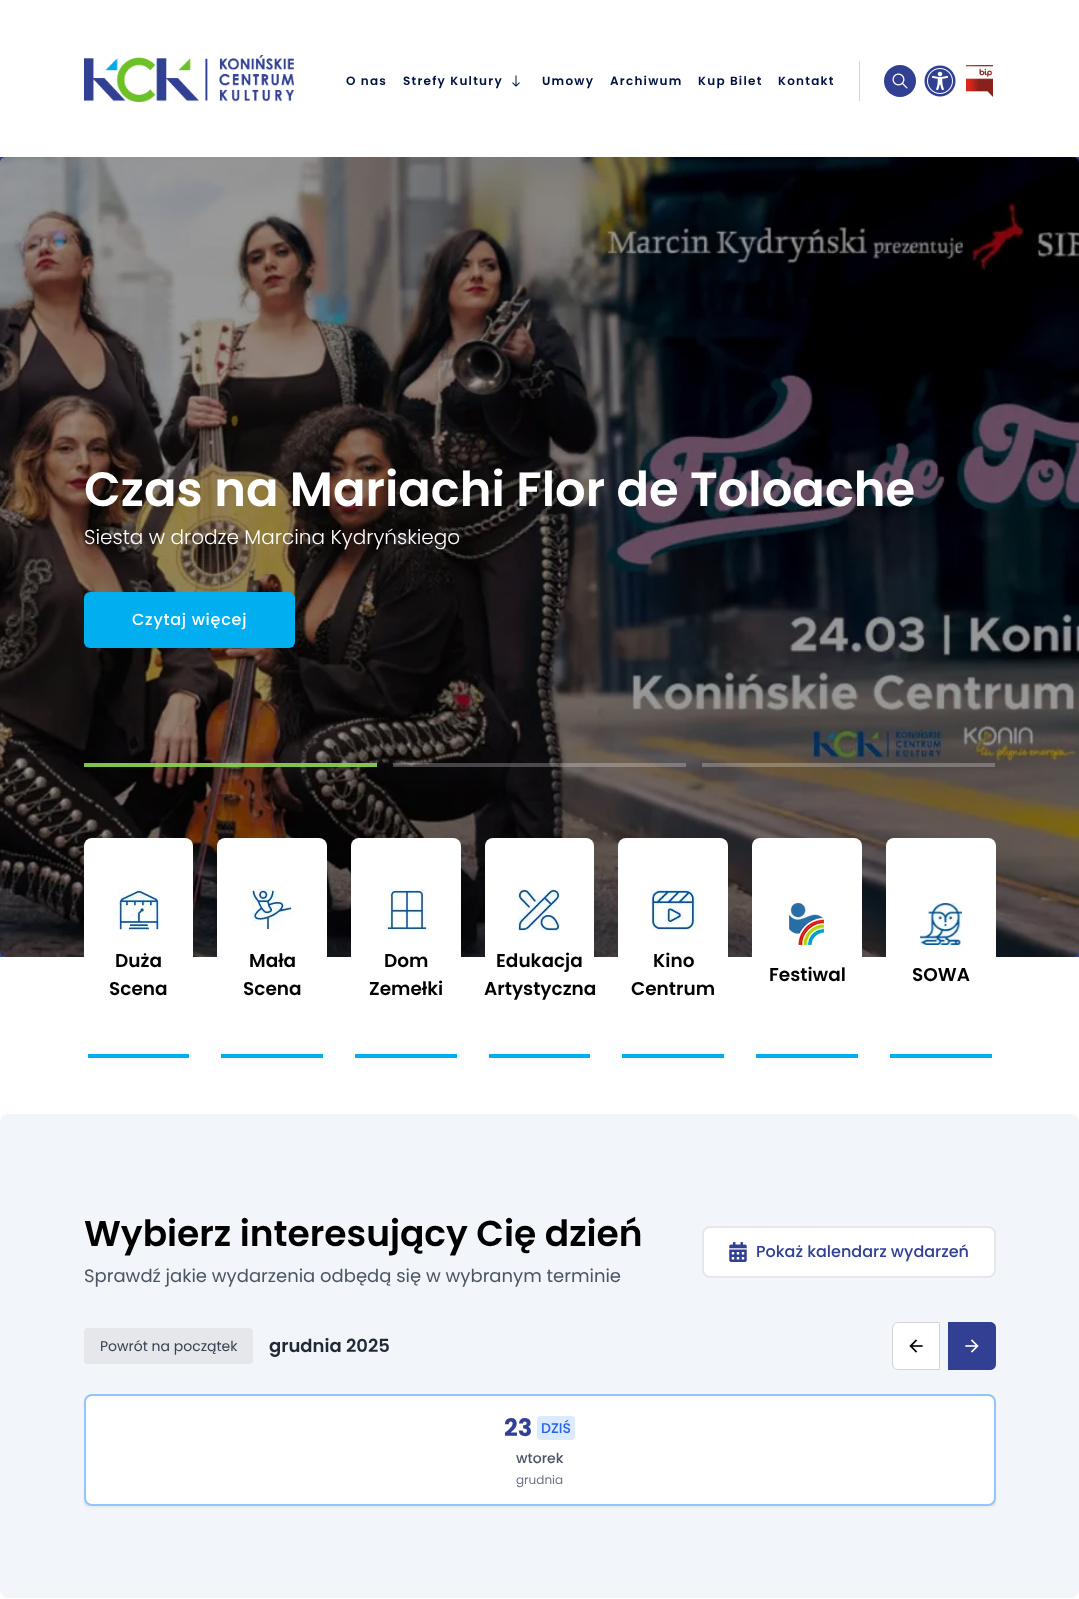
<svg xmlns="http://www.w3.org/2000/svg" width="1079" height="1599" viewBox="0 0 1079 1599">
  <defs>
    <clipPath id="clip1"><path d="M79 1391H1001V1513H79ZM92 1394H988C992.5 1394 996 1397.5 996 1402V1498C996 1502.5 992.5 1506 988 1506H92C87.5 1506 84 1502.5 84 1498V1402C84 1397.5 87.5 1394 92 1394Z" clip-rule="evenodd"/></clipPath>
    <clipPath id="clip2"><rect x="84" y="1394" width="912" height="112"/></clipPath>
  </defs>
  <rect width="100%" height="100%" fill="rgb(255,255,255)"/>
  <image x="84" y="55" width="210" height="47" href="pic1.png"/>
  <g font-family="Poppins" font-size="12" font-weight="600" letter-spacing="1.25" fill="rgb(0,17,64)">
    <text x="346" y="85">O nas</text>
    <text x="403" y="85">Strefy Kultury</text>
  </g>
  <image x="512" y="75" width="8" height="12" href="pic2.png"/>
  <g font-family="Poppins" font-size="12" font-weight="600" letter-spacing="1.25" fill="rgb(0,17,64)">
    <text x="542" y="85">Umowy</text>
    <text x="610" y="85">Archiwum</text>
    <text x="698" y="85">Kup Bilet</text>
    <text x="778" y="85">Kontakt</text>
  </g>
  <rect x="859" y="61" width="1" height="40" fill="rgb(209,213,219)"/>
  <circle cx="900" cy="81" r="16" fill="rgb(50,64,148)"/>
  <image x="892" y="73" width="16" height="16" href="pic3.png"/>
  <image x="924" y="65" width="32" height="32" href="pic4.png"/>
  <image x="966" y="65" width="27" height="32" href="pic5.png"/>
  <rect x="0" y="157" width="1079" height="800" fill="rgb(50,64,148)"/>
  <image x="0" y="157" width="1079" height="800" href="pic6.png"/>
  <rect x="0" y="157" width="1079" height="800" rx="6" fill="rgba(0,0,0,0.4)"/>
  <text x="84" y="506" font-family="Poppins" font-size="48" font-weight="600" fill="rgb(255,255,255)">Czas na Mariachi Flor de Toloache</text>
  <text x="84" y="544" font-family="Poppins" font-size="20" font-weight="300" fill="rgb(255,255,255)">Siesta w drodze Marcina Kydryńskiego</text>
  <rect x="84" y="592" width="211" height="56" rx="6" fill="rgb(1,174,240)"/>
  <text x="132" y="625" font-family="Poppins" font-size="16" font-weight="500" letter-spacing="0.75" fill="rgb(255,255,255)">Czytaj więcej</text>
  <rect x="84" y="763" width="293" height="4" fill="rgba(255,255,255,0.75)"/>
  <rect x="84" y="763" width="293" height="4" fill="rgba(108,193,39,0.75)"/>
  <rect x="393" y="763" width="293" height="4" fill="rgba(255,255,255,0.25)"/>
  <rect x="702" y="763" width="293" height="4" fill="rgba(255,255,255,0.25)"/>
  <rect x="84" y="838" width="109" height="220" rx="8" fill="rgb(255,255,255)"/>
  <rect x="88" y="1054" width="101" height="4" fill="rgb(1,174,240)"/>
  <image x="118" y="889" width="41" height="42" href="pic7.png"/>
  <g font-family="Poppins" font-size="18.5" font-weight="600" fill="rgb(0,0,0)">
    <text x="115" y="967">Duża</text>
    <text x="109" y="995">Scena</text>
  </g>
  <rect x="217" y="838" width="110" height="220" rx="8" fill="rgb(255,255,255)"/>
  <rect x="221" y="1054" width="102" height="4" fill="rgb(1,174,240)"/>
  <image x="252" y="889" width="41" height="42" href="pic8.png"/>
  <g font-family="Poppins" font-size="18.5" font-weight="600" fill="rgb(0,0,0)">
    <text x="249" y="967">Mała</text>
    <text x="243" y="995">Scena</text>
  </g>
  <rect x="351" y="838" width="110" height="220" rx="8" fill="rgb(255,255,255)"/>
  <rect x="355" y="1054" width="102" height="4" fill="rgb(1,174,240)"/>
  <image x="384" y="889" width="43" height="42" href="pic9.png"/>
  <g font-family="Poppins" font-size="18.5" font-weight="600" fill="rgb(0,0,0)">
    <text x="384" y="967">Dom</text>
    <text x="369" y="995">Zemełki</text>
  </g>
  <rect x="485" y="838" width="109" height="220" rx="8" fill="rgb(255,255,255)"/>
  <rect x="489" y="1054" width="101" height="4" fill="rgb(1,174,240)"/>
  <image x="518" y="889" width="42" height="42" href="pic10.png"/>
  <g font-family="Poppins" font-size="18.5" font-weight="600" fill="rgb(0,0,0)">
    <text x="496" y="967">Edukacja</text>
    <text x="484" y="995">Artystyczna</text>
  </g>
  <rect x="618" y="838" width="110" height="220" rx="8" fill="rgb(255,255,255)"/>
  <rect x="622" y="1054" width="102" height="4" fill="rgb(1,174,240)"/>
  <image x="651" y="889" width="44" height="42" href="pic11.png"/>
  <g font-family="Poppins" font-size="18.5" font-weight="600" fill="rgb(0,0,0)">
    <text x="653" y="967">Kino</text>
    <text x="631" y="995">Centrum</text>
  </g>
  <rect x="752" y="838" width="110" height="220" rx="8" fill="rgb(255,255,255)"/>
  <rect x="756" y="1054" width="102" height="4" fill="rgb(1,174,240)"/>
  <image x="789" y="903" width="35" height="42" href="pic12.png"/>
  <text x="769" y="981" font-family="Poppins" font-size="18.5" font-weight="600" fill="rgb(0,0,0)">Festiwal</text>
  <rect x="886" y="838" width="110" height="220" rx="8" fill="rgb(255,255,255)"/>
  <rect x="890" y="1054" width="102" height="4" fill="rgb(1,174,240)"/>
  <image x="919" y="903" width="43" height="42" href="pic13.png"/>
  <text x="912" y="981" font-family="Poppins" font-size="18.5" font-weight="600" fill="rgb(0,0,0)">SOWA</text>
  <rect x="0" y="1114" width="1079" height="484" rx="8" fill="rgb(242,245,250)"/>
  <text x="84" y="1246" font-family="Poppins" font-size="36" font-weight="600" fill="rgb(0,0,0)">Wybierz interesujący Cię dzień</text>
  <text x="84" y="1282" font-family="Poppins" font-size="18" fill="rgb(75,85,99)">Sprawdź jakie wydarzenia odbędą się w wybranym terminie</text>
  <rect x="703" y="1227" width="292" height="50" rx="7" fill="rgb(255,255,255)" stroke="rgb(229,231,235)" stroke-width="2"/>
  <image x="729" y="1242" width="18" height="20" href="pic14.png"/>
  <text x="756" y="1257" font-family="Poppins" font-size="16" font-weight="500" fill="rgb(50,64,148)">Pokaż kalendarz wydarzeń</text>
  <rect x="84" y="1328" width="169" height="36" rx="4" fill="rgb(229,231,235)"/>
  <text x="100" y="1351" font-family="Poppins" font-size="14" fill="rgb(55,65,81)">Powrót na początek</text>
  <text x="269" y="1352" font-family="Poppins" font-size="18" font-weight="600" fill="rgb(31,41,55)">grudnia 2025</text>
  <path d="M898 1322.5H939.5V1369.5H898C895 1369.5 892.5 1367 892.5 1364V1328C892.5 1325 895 1322.5 898 1322.5Z" fill="rgb(255,255,255)" stroke="rgb(209,213,219)"/>
  <image x="909" y="1339" width="14" height="14" href="pic15.png"/>
  <path d="M948 1322H990C993.5 1322 996 1324.5 996 1328V1364C996 1367.5 993.5 1370 990 1370H948Z" fill="rgb(50,64,148)"/>
  <image x="965" y="1339" width="14" height="14" href="pic16.png"/>
  <g clip-path="url(#clip1)">
    <rect x="86" y="1398" width="908" height="108" rx="6" fill="rgba(0,0,0,0.1)" filter="blur(2px)"/>
  </g>
  <g clip-path="url(#clip2)">
    <rect x="85" y="1399" width="910" height="110" rx="7" fill="rgba(0,0,0,0.1)" filter="blur(3px)"/>
  </g>
  <rect x="85" y="1395" width="910" height="110" rx="7" fill="rgb(255,255,255)" stroke="rgb(147,197,253)" stroke-width="2"/>
  <text x="504" y="1436" font-family="Poppins" font-size="24" font-weight="bold" fill="rgb(50,64,148)">23</text>
  <rect x="537" y="1416" width="38" height="24" rx="4" fill="rgb(219,234,254)"/>
  <text x="541" y="1433" font-family="Poppins" font-size="14" font-weight="500" fill="rgb(37,99,235)">DZIŚ</text>
  <text x="516" y="1463" font-family="Poppins" font-size="14" font-weight="500" fill="rgb(75,85,99)">wtorek</text>
  <text x="516" y="1484" font-family="Poppins" font-size="12" fill="rgb(107,114,128)">grudnia</text>
</svg>
